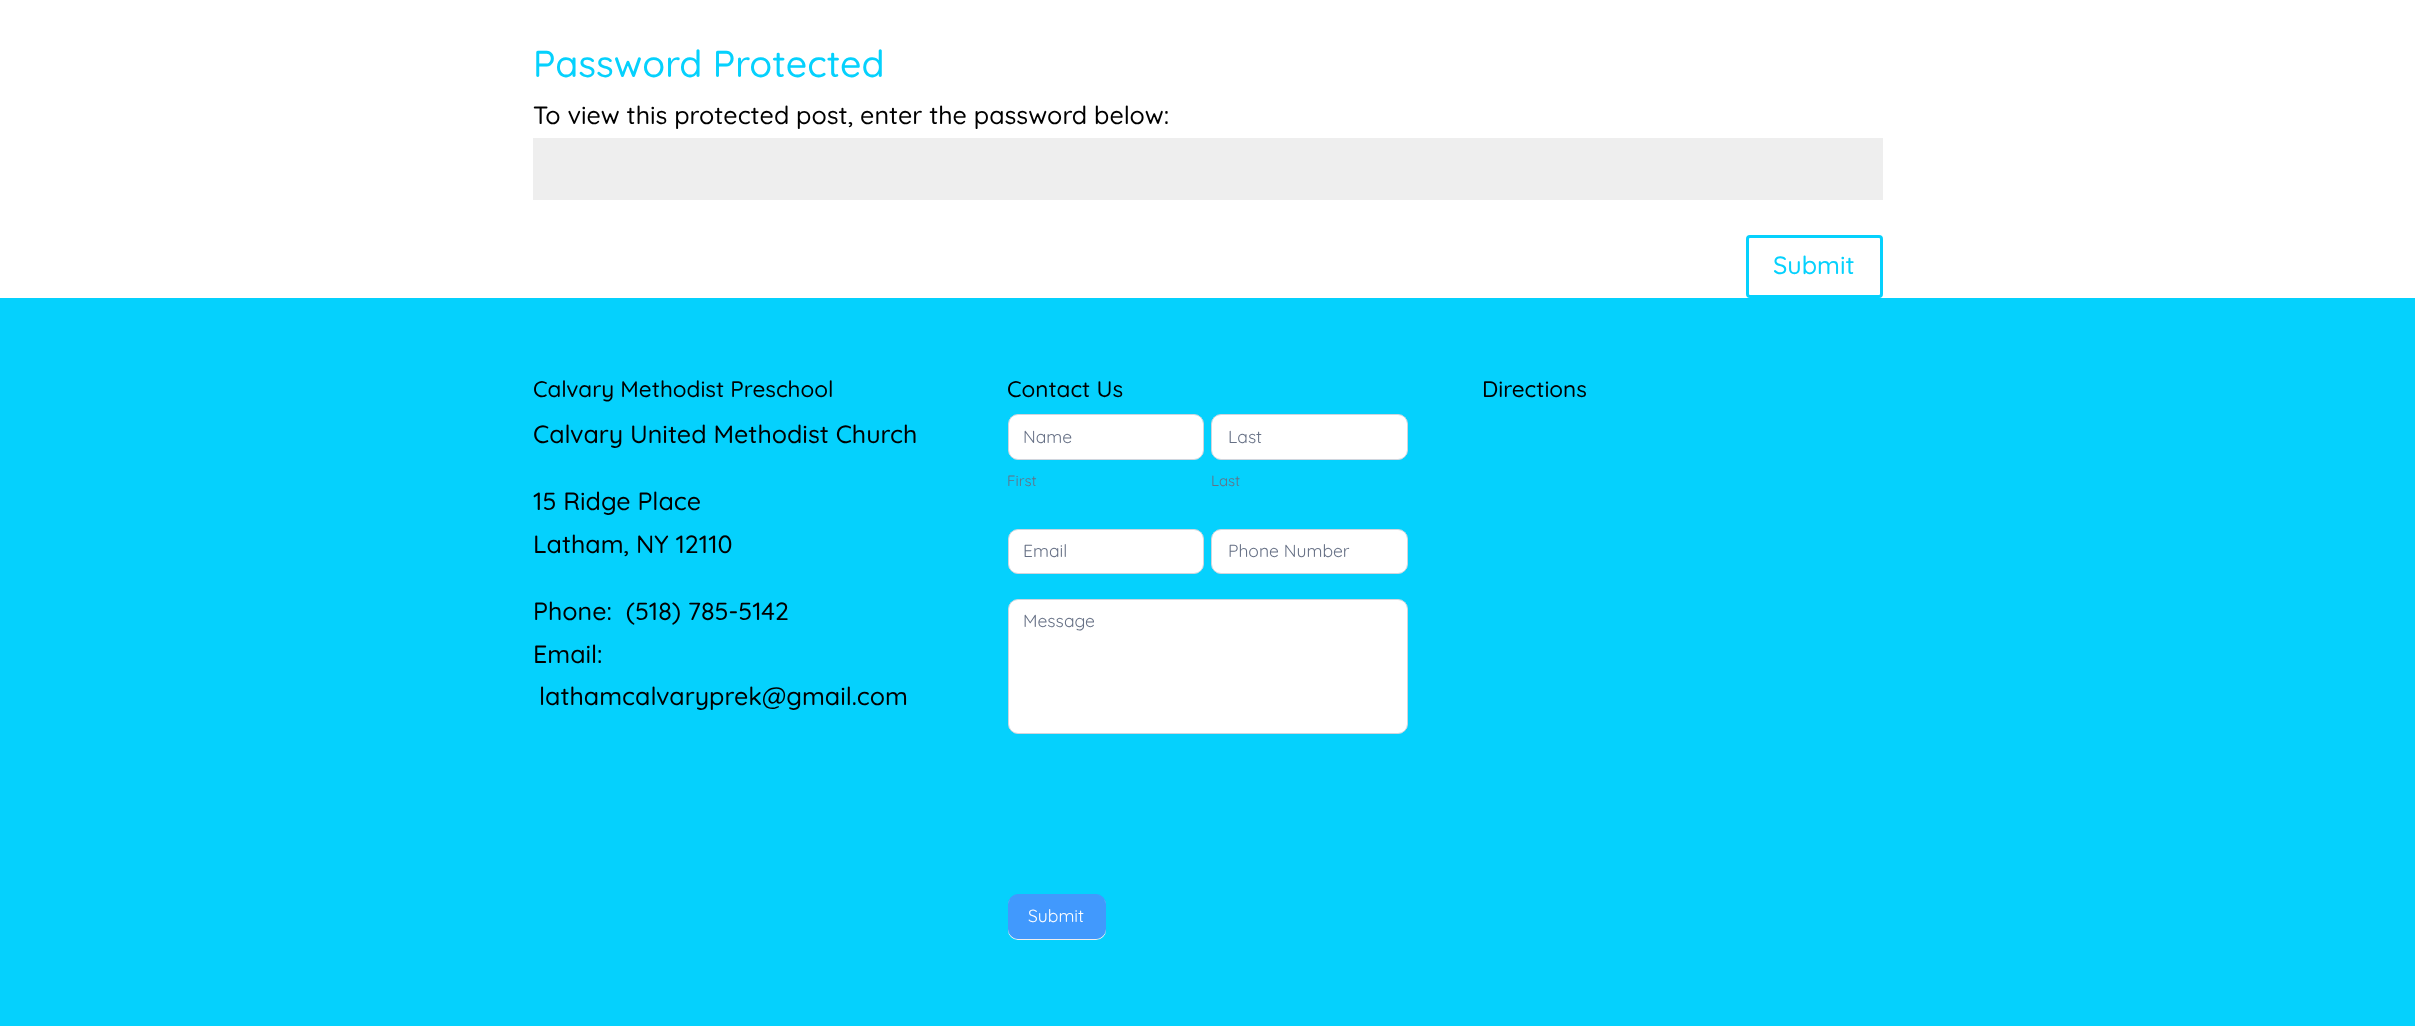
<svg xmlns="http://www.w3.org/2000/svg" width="2415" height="1026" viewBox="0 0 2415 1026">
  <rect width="100%" height="100%" fill="rgb(255,255,255)"/>
  <text x="533" y="77" font-family="Quicksand" font-size="37.5" font-weight="500" fill="rgb(5,209,253)">Password Protected</text>
  <text x="533" y="124" font-family="Quicksand" font-size="25" font-weight="500" fill="rgb(0,0,0)">To view this protected post, enter the password below:</text>
  <rect x="533" y="138" width="1350" height="62" fill="rgb(238,238,238)"/>
  <rect x="1747.5" y="236.5" width="134" height="60" rx="2.5" fill="none" stroke="rgb(5,209,253)" stroke-width="3"/>
  <text x="1773" y="274" font-family="Quicksand" font-size="25" font-weight="500" fill="rgb(5,209,253)">Submit</text>
  <rect x="0" y="298" width="2415" height="728" fill="rgb(5,209,253)"/>
  <text x="533" y="397" font-family="Quicksand" font-size="22.5" font-weight="500" fill="rgb(0,0,0)">Calvary Methodist Preschool</text>
  <g font-family="Quicksand" font-size="25" font-weight="500" fill="rgb(0,0,0)">
    <text x="533" y="443">Calvary United Methodist Church</text>
    <text>
      <tspan x="533" y="510">15 Ridge Place</tspan>
      <tspan x="533" y="553">Latham, NY 12110</tspan>
    </text>
    <text xml:space="preserve"><tspan x="533" y="620">Phone:  (518) 785-5142</tspan><tspan x="533" y="663">Email:</tspan></text>
    <text x="539" y="705">lathamcalvaryprek@gmail.com</text>
  </g>
  <text x="1007" y="397" font-family="Quicksand" font-size="22.5" font-weight="500" fill="rgb(0,0,0)">Contact Us</text>
  <rect x="1008.5" y="414.5" width="195" height="45" rx="9.5" fill="rgb(255,255,255)" stroke="rgb(208,213,221)"/>
  <text x="1023" y="443" font-family="Quicksand" font-size="17.5" fill="rgb(102,112,133)">Name</text>
  <text x="1007" y="486" font-family="Quicksand" font-size="15" fill="rgb(102,112,133)">First</text>
  <rect x="1211.5" y="414.5" width="196" height="45" rx="9.5" fill="rgb(255,255,255)" stroke="rgb(208,213,221)"/>
  <text x="1228" y="443" font-family="Quicksand" font-size="17.5" fill="rgb(102,112,133)">Last</text>
  <text x="1211" y="486" font-family="Quicksand" font-size="15" fill="rgb(102,112,133)">Last</text>
  <rect x="1008.5" y="529.5" width="195" height="44" rx="9.5" fill="rgb(255,255,255)" stroke="rgb(208,213,221)"/>
  <text x="1023" y="557" font-family="Quicksand" font-size="17.5" fill="rgb(102,112,133)">Email</text>
  <rect x="1211.5" y="529.5" width="196" height="44" rx="9.5" fill="rgb(255,255,255)" stroke="rgb(208,213,221)"/>
  <text x="1228" y="557" font-family="Quicksand" font-size="17.5" fill="rgb(102,112,133)">Phone Number</text>
  <rect x="1008.5" y="599.5" width="399" height="134" rx="9.5" fill="rgb(255,255,255)" stroke="rgb(208,213,221)"/>
  <text x="1023" y="627" font-family="Quicksand" font-size="17.5" fill="rgb(102,112,133)">Message</text>
  <rect x="1008" y="895" width="98" height="45" rx="10" fill="rgb(238,238,238)" filter="blur(0.5px)"/>
  <rect x="1008.5" y="894.5" width="97" height="44" rx="9.5" fill="rgb(65,153,253)" stroke="rgb(65,153,253)"/>
  <text x="1028" y="922" font-family="Quicksand" font-size="17.5" fill="rgb(255,255,255)">Submit</text>
  <text x="1482" y="397" font-family="Quicksand" font-size="22.5" font-weight="500" fill="rgb(0,0,0)">Directions</text>
</svg>
